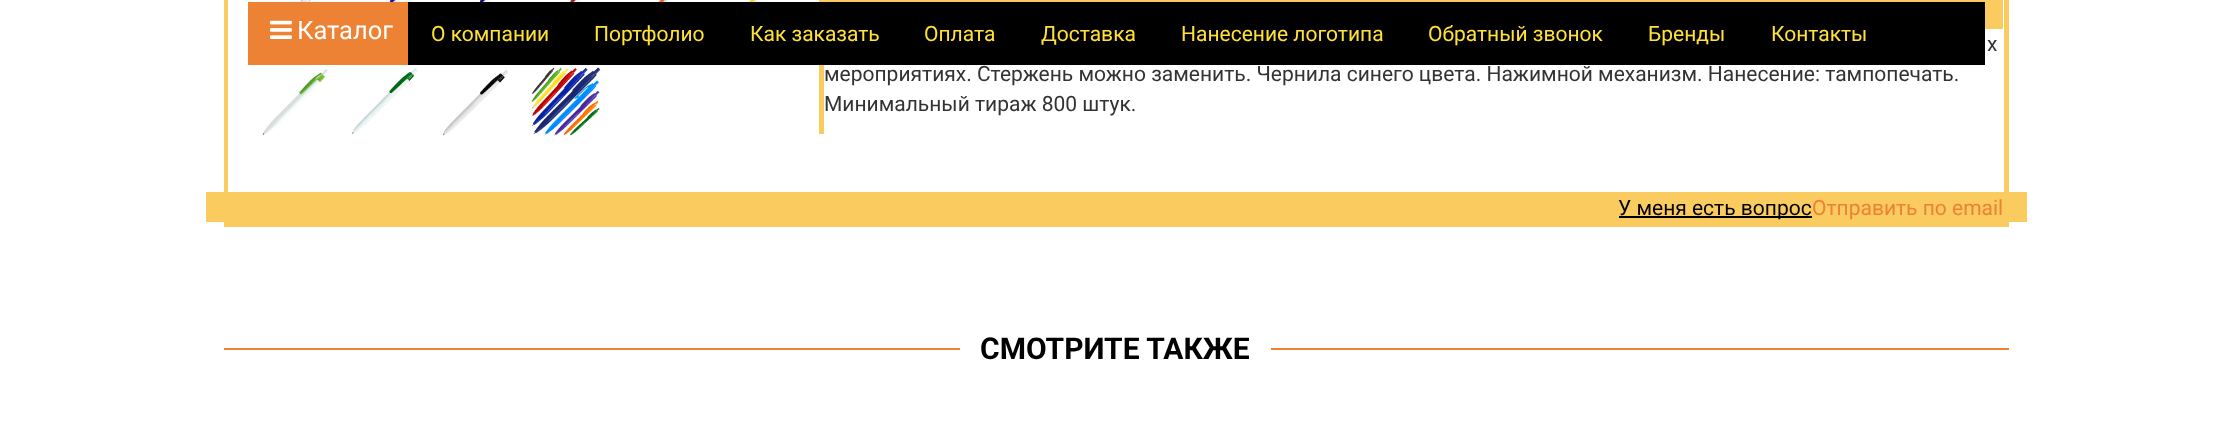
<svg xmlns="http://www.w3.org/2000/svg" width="2230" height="439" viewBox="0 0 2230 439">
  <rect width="100%" height="100%" fill="rgb(255,255,255)"/>
  <rect x="226.5" y="-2.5" width="1780" height="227" fill="none" stroke="rgb(250,204,96)" stroke-width="5"/>
  <rect x="819" y="0" width="5" height="134" fill="rgb(250,204,96)"/>
  <rect x="824" y="0" width="1179" height="29" fill="rgb(250,203,95)"/>
  <rect x="408" y="2" width="1577" height="63" fill="rgb(0,0,0)"/>
  <rect x="248" y="2" width="160" height="63" fill="rgb(238,130,52)"/>
  <image x="270" y="20" width="22" height="19" href="pic1.png"/>
  <text x="297" y="39" font-family="Roboto" font-size="25.5" fill="rgb(255,255,255)">Каталог</text>
  <g font-family="Roboto" font-size="21" fill="rgb(255,225,56)">
    <text x="431" y="41">О компании</text>
    <text x="594" y="41">Портфолио</text>
    <text x="750" y="41">Как заказать</text>
    <text x="924" y="41">Оплата</text>
    <text x="1041" y="41">Доставка</text>
    <text x="1181" y="41">Нанесение логотипа</text>
    <text x="1428" y="41">Обратный звонок</text>
    <text x="1648" y="41">Бренды</text>
    <text x="1771" y="41">Контакты</text>
  </g>
  <rect x="228" y="0" width="1" height="192" fill="rgb(255,255,255)"/>
  <image x="262" y="0" width="50" height="2" href="pic2.png"/>
  <image x="351" y="0" width="50" height="2" href="pic3.png"/>
  <image x="442" y="0" width="49" height="2" href="pic4.png"/>
  <image x="533" y="0" width="48" height="2" href="pic5.png"/>
  <image x="622" y="0" width="49" height="2" href="pic6.png"/>
  <image x="711" y="0" width="50" height="2" href="pic7.png"/>
  <image x="262" y="69" width="67" height="66" href="pic8.png"/>
  <image x="351" y="68" width="67" height="66" href="pic9.png"/>
  <image x="443" y="70" width="65" height="66" href="pic10.png"/>
  <image x="531" y="67" width="70" height="69" href="pic11.png"/>
  <g font-family="Roboto" font-size="21" fill="rgb(51,51,51)">
    <text x="1987" y="51">х</text>
    <text>
      <tspan x="824" y="81">мероприятиях. Стержень можно заменить. Чернила синего цвета. Нажимной механизм. Нанесение: тампопечать.</tspan>
      <tspan x="824" y="111">Минимальный тираж 800 штук.</tspan>
    </text>
  </g>
  <rect x="206" y="192" width="1821" height="30" fill="rgb(250,204,96)"/>
  <rect x="1619" y="216" width="193" height="2" fill="rgb(0,0,0)"/>
  <text x="1618" y="215" font-family="Roboto" font-size="21" fill="rgb(0,0,0)">У меня есть вопрос</text>
  <text x="1812" y="215" font-family="Roboto" font-size="21" fill="rgb(238,130,52)">Отправить по email</text>
  <rect x="224" y="348" width="736" height="2" fill="rgb(238,130,52)"/>
  <text x="980" y="359" font-family="Roboto" font-size="30" font-weight="bold" fill="rgb(0,0,0)">СМОТРИТЕ ТАКЖЕ</text>
  <rect x="1271" y="348" width="738" height="2" fill="rgb(238,130,52)"/>
</svg>
